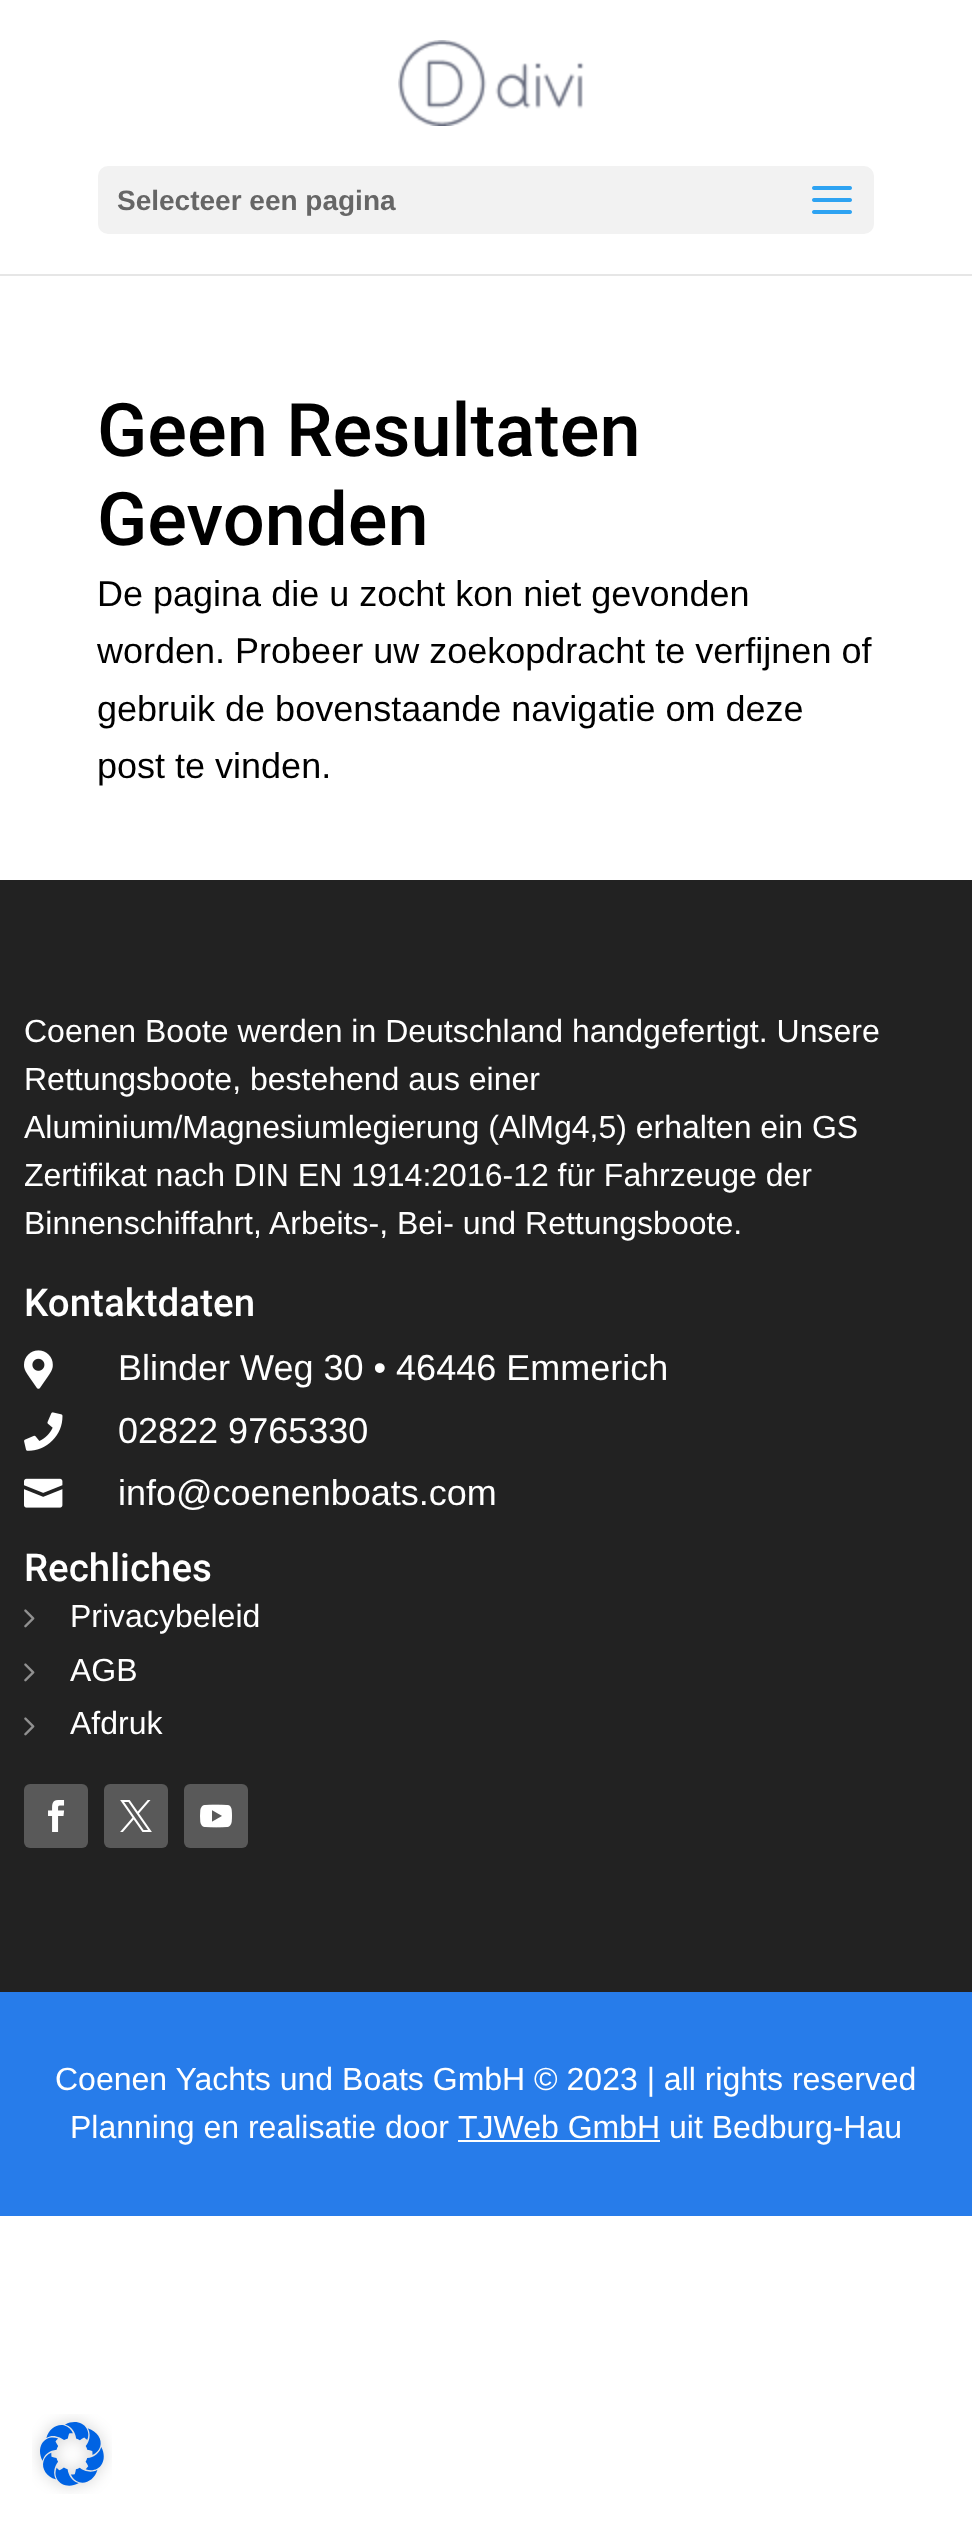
<svg xmlns="http://www.w3.org/2000/svg" width="972" height="2525" viewBox="0 0 972 2525">
  <rect width="100%" height="100%" fill="rgb(255,255,255)"/>
  <rect x="0" y="274" width="972" height="2" fill="rgb(230,230,230)"/>
  <image x="398" y="40" width="186" height="86" href="pic1.png"/>
  <rect x="98" y="166" width="776" height="68" rx="10" fill="rgb(242,242,242)"/>
  <text x="117" y="210" font-family="Liberation Sans" font-size="28" font-weight="bold" fill="rgb(102,102,102)">Selecteer een pagina</text>
  <image x="812" y="186" width="40" height="28" href="pic2.png"/>
  <g font-family="Roboto" font-size="74" font-weight="500" fill="rgb(0,0,0)">
    <text>
      <tspan x="97" y="456">Geen Resultaten</tspan>
      <tspan x="97" y="545">Gevonden</tspan>
    </text>
  </g>
  <g font-family="Liberation Sans" font-size="36" fill="rgb(0,0,0)">
    <text>
      <tspan x="97" y="606">De pagina die u zocht kon niet gevonden</tspan>
      <tspan x="97" y="663">worden. Probeer uw zoekopdracht te verfijnen of</tspan>
      <tspan x="97" y="721">gebruik de bovenstaande navigatie om deze</tspan>
      <tspan x="97" y="778">post te vinden.</tspan>
    </text>
  </g>
  <rect x="0" y="880" width="972" height="1112" fill="rgb(34,34,34)"/>
  <g font-family="Liberation Sans" font-size="32" fill="rgb(255,255,255)">
    <text>
      <tspan x="24" y="1042">Coenen Boote werden in Deutschland handgefertigt. Unsere</tspan>
      <tspan x="24" y="1090">Rettungsboote, bestehend aus einer</tspan>
      <tspan x="24" y="1138">Aluminium/Magnesiumlegierung (AlMg4,5) erhalten ein GS</tspan>
      <tspan x="24" y="1186">Zertifikat nach DIN EN 1914:2016-12 für Fahrzeuge der</tspan>
      <tspan x="24" y="1234">Binnenschiffahrt, Arbeits-, Bei- und Rettungsboote.</tspan>
    </text>
  </g>
  <text x="24" y="1316" font-family="Roboto" font-size="38.5" font-weight="500" fill="rgb(255,255,255)">Kontaktdaten</text>
  <image x="24" y="1350" width="29" height="39" href="pic3.png"/>
  <text x="118" y="1380" font-family="Liberation Sans" font-size="36" fill="rgb(255,255,255)">Blinder Weg 30 • 46446 Emmerich</text>
  <image x="24" y="1412" width="39" height="39" href="pic4.png"/>
  <text x="118" y="1443" font-family="Liberation Sans" font-size="36" fill="rgb(255,255,255)">02822 9765330</text>
  <image x="24" y="1478" width="39" height="30" href="pic5.png"/>
  <text x="118" y="1505" font-family="Liberation Sans" font-size="36" fill="rgb(255,255,255)">info@coenenboats.com</text>
  <text x="24" y="1581" font-family="Roboto" font-size="38.5" font-weight="500" fill="rgb(255,255,255)">Rechliches</text>
  <image x="24" y="1609" width="11" height="19" href="pic6.png"/>
  <text x="70" y="1627" font-family="Liberation Sans" font-size="32" fill="rgb(255,255,255)">Privacybeleid</text>
  <image x="24" y="1663" width="11" height="19" href="pic6.png"/>
  <text x="70" y="1681" font-family="Liberation Sans" font-size="32" fill="rgb(255,255,255)">AGB</text>
  <image x="24" y="1717" width="11" height="19" href="pic6.png"/>
  <text x="70" y="1734" font-family="Liberation Sans" font-size="32" fill="rgb(255,255,255)">Afdruk</text>
  <rect x="24" y="1784" width="64" height="64" rx="6" fill="rgb(89,89,89)"/>
  <image x="48" y="1800" width="17" height="32" href="pic7.png"/>
  <rect x="104" y="1784" width="64" height="64" rx="6" fill="rgb(89,89,89)"/>
  <image x="120" y="1800" width="32" height="32" href="pic8.png"/>
  <rect x="184" y="1784" width="64" height="64" rx="6" fill="rgb(89,89,89)"/>
  <image x="200" y="1804" width="32" height="24" href="pic9.png"/>
  <rect x="0" y="1992" width="972" height="224" fill="rgb(39,124,234)"/>
  <g font-family="Liberation Sans" font-size="32" fill="rgb(255,255,255)">
    <text x="55" y="2090">Coenen Yachts und Boats GmbH © 2023 | all rights reserved</text>
    <text x="70" y="2138">Planning en realisatie door</text>
  </g>
  <rect x="458" y="2140" width="202" height="2" fill="rgb(255,255,255)"/>
  <text x="458" y="2138" font-family="Liberation Sans" font-size="32" fill="rgb(255,255,255)">TJWeb GmbH uit Bedburg-Hau</text>
  <image x="32" y="2414" width="80" height="80" href="pic10.png"/>
</svg>
